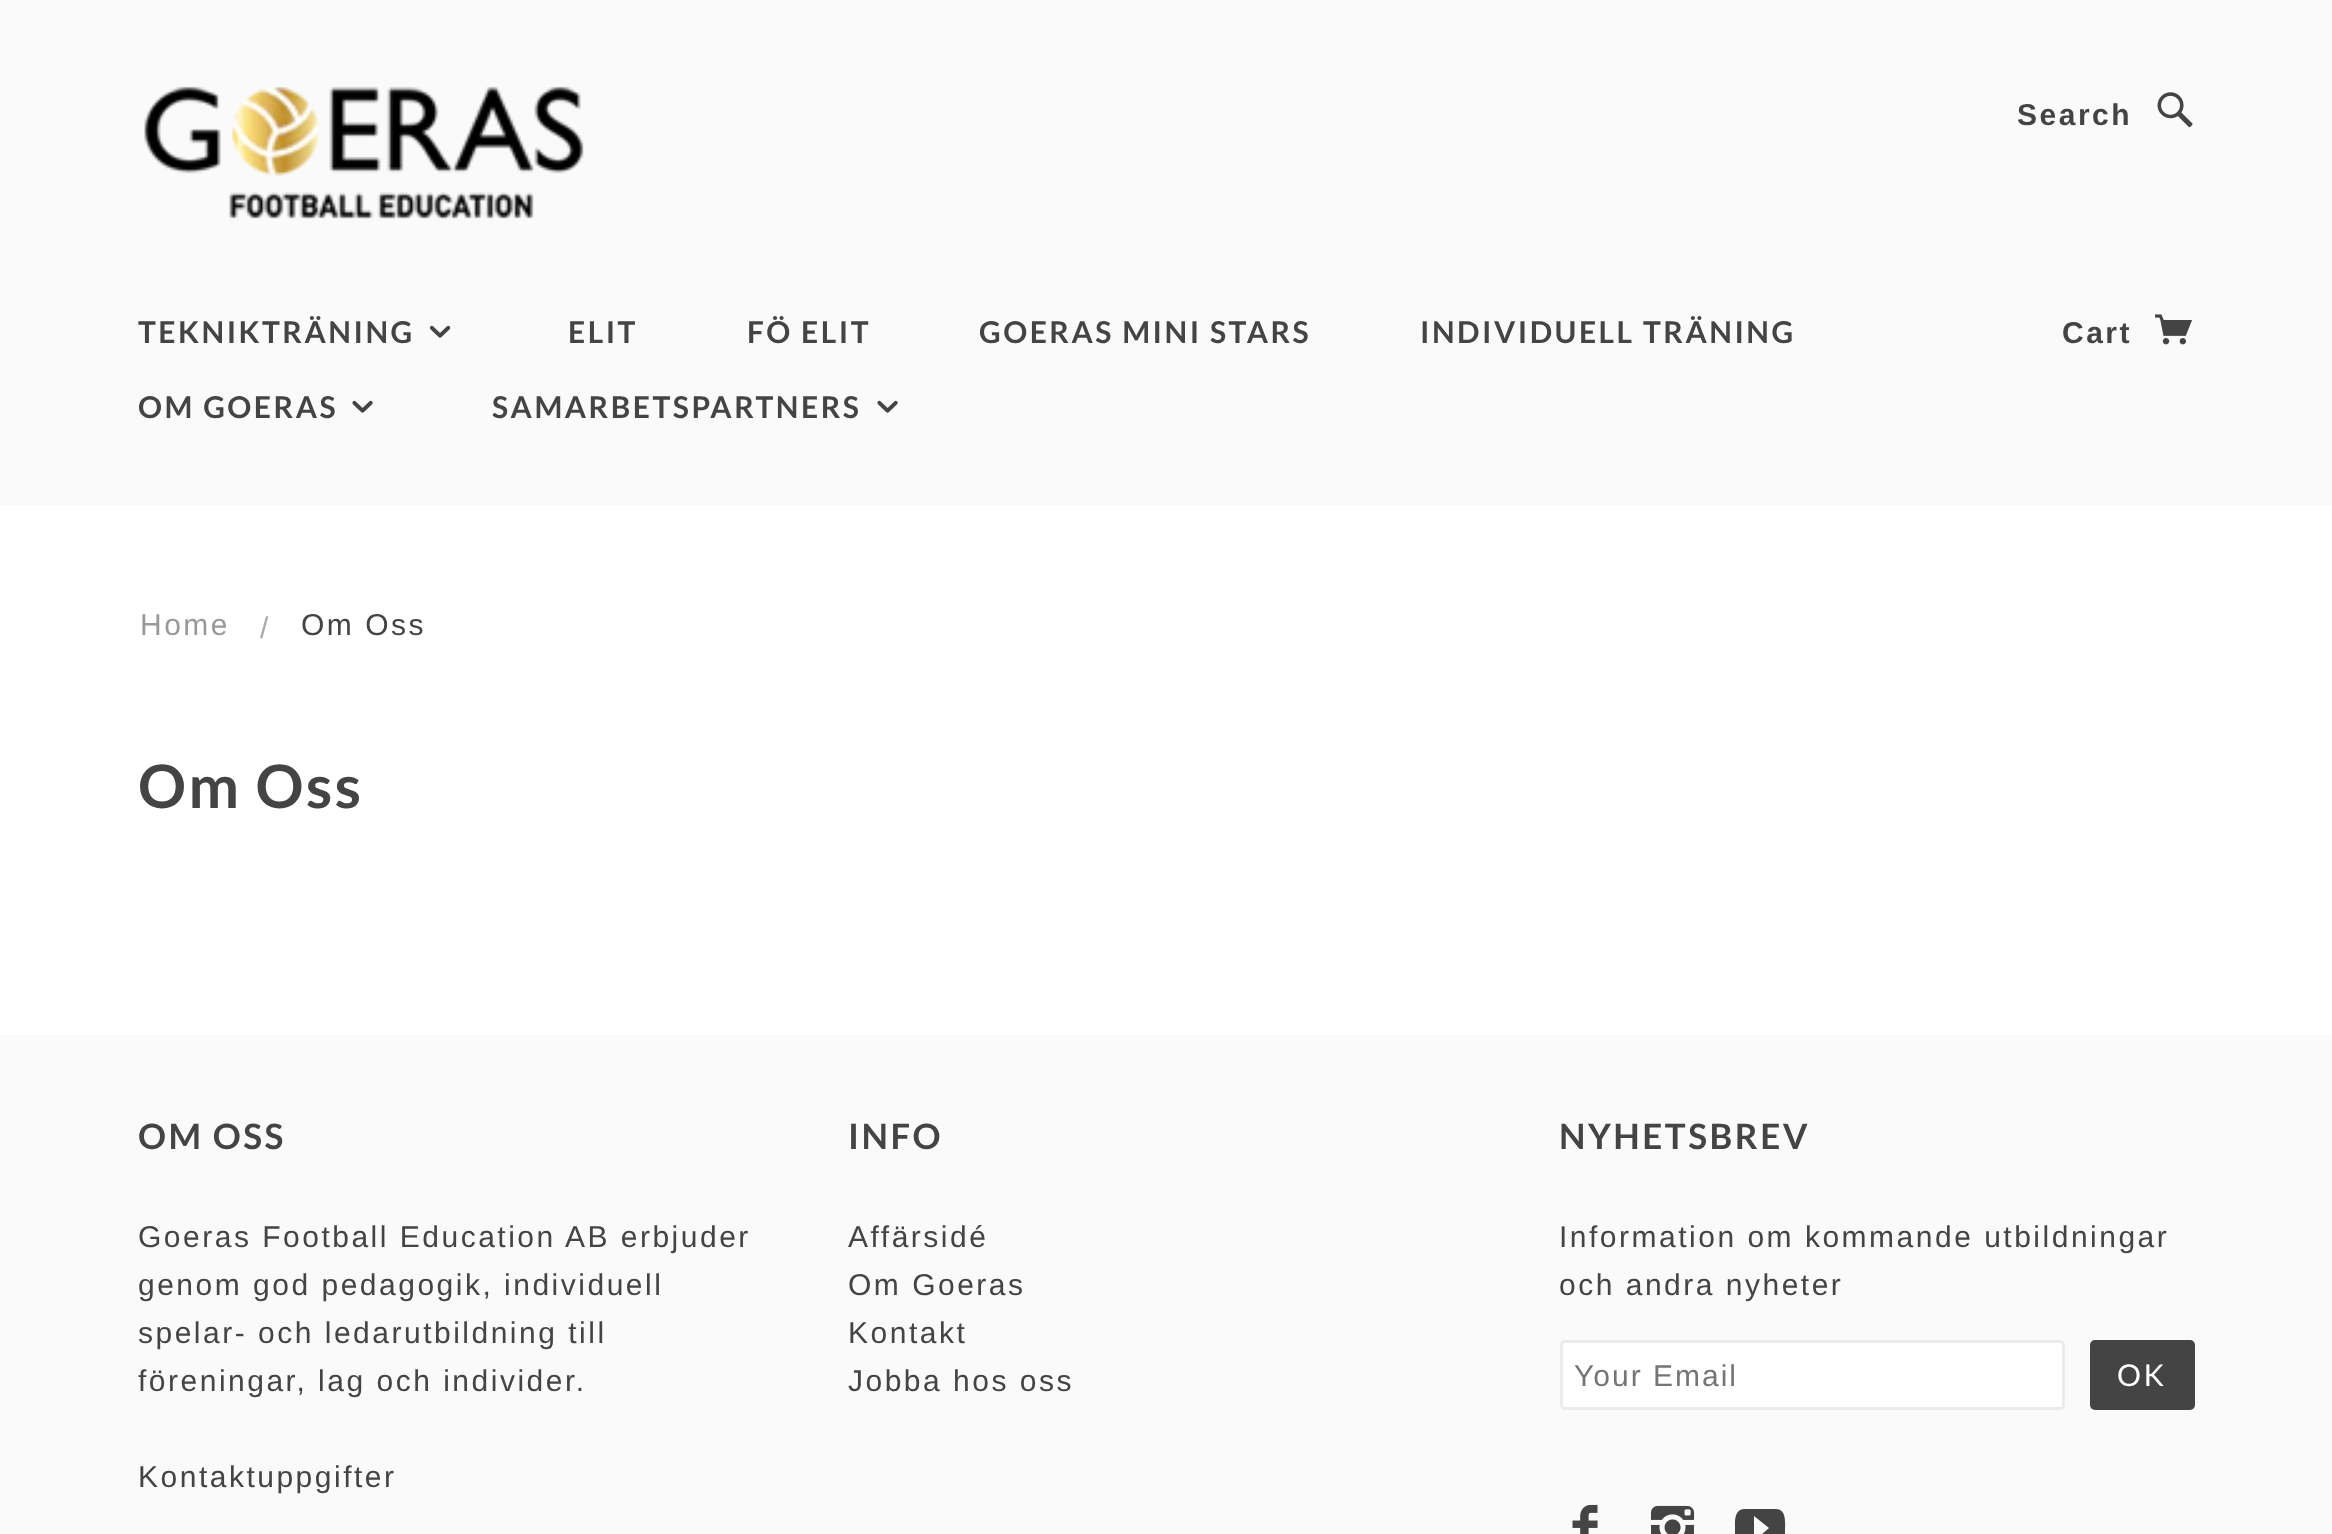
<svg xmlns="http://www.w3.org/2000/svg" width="2332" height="1534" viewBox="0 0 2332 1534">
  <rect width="100%" height="100%" fill="rgb(255,255,255)"/>
  <rect x="0" y="0" width="2332" height="505" fill="rgb(250,250,250)"/>
  <image x="144" y="86" width="440" height="133" href="pic1.png"/>
  <text x="2017" y="125" font-family="Liberation Sans" font-size="30" font-weight="bold" letter-spacing="2.5" fill="rgb(68,68,68)">Search</text>
  <image x="2157" y="92" width="36" height="36" href="pic2.png"/>
  <text x="138" y="343" font-family="Lato" font-size="30" font-weight="bold" letter-spacing="2.5" fill="rgb(68,68,68)">TEKNIKTRÄNING</text>
  <image x="429" y="325" width="22" height="13" href="pic3.png"/>
  <g font-family="Lato" font-size="30" font-weight="bold" letter-spacing="2.5" fill="rgb(68,68,68)">
    <text x="568" y="343">ELIT</text>
    <text x="747" y="343">FÖ ELIT</text>
    <text x="979" y="343">GOERAS MINI STARS</text>
    <text x="1420" y="343">INDIVIDUELL TRÄNING</text>
    <text x="138" y="418">OM GOERAS</text>
  </g>
  <image x="352" y="400" width="21" height="13" href="pic4.png"/>
  <text x="492" y="418" font-family="Lato" font-size="30" font-weight="bold" letter-spacing="2.5" fill="rgb(68,68,68)">SAMARBETSPARTNERS</text>
  <image x="877" y="400" width="21" height="13" href="pic4.png"/>
  <text x="2062" y="343" font-family="Liberation Sans" font-size="30" font-weight="bold" letter-spacing="2.5" fill="rgb(68,68,68)">Cart</text>
  <image x="2155" y="314" width="37" height="31" href="pic5.png"/>
  <text x="140" y="635" font-family="Liberation Sans" font-size="30" letter-spacing="2.5" fill="rgb(153,153,153)">Home</text>
  <text x="260" y="638" font-family="Liberation Sans" font-size="30" letter-spacing="2.5" fill="rgb(170,170,170)">/</text>
  <text x="301" y="635" font-family="Liberation Sans" font-size="30" letter-spacing="2.5" fill="rgb(68,68,68)">Om Oss</text>
  <text x="138" y="808" font-family="Lato" font-size="60" font-weight="bold" letter-spacing="2.5" fill="rgb(68,68,68)">Om Oss</text>
  <rect x="0" y="1035" width="2332" height="499" fill="rgb(250,250,250)"/>
  <text x="138" y="1149" font-family="Lato" font-size="35" font-weight="bold" letter-spacing="2.5" fill="rgb(68,68,68)">OM OSS</text>
  <g font-family="Liberation Sans" font-size="30" letter-spacing="2.5" fill="rgb(68,68,68)">
    <text>
      <tspan x="138" y="1247">Goeras Football Education AB erbjuder</tspan>
      <tspan x="138" y="1295">genom god pedagogik, individuell</tspan>
      <tspan x="138" y="1343">spelar- och ledarutbildning till</tspan>
      <tspan x="138" y="1391">föreningar, lag och individer.</tspan>
    </text>
    <text x="138" y="1487">Kontaktuppgifter</text>
  </g>
  <text x="848" y="1149" font-family="Lato" font-size="35" font-weight="bold" letter-spacing="2.5" fill="rgb(68,68,68)">INFO</text>
  <g font-family="Liberation Sans" font-size="30" letter-spacing="2.5" fill="rgb(68,68,68)">
    <text>
      <tspan x="848" y="1247">Affärsidé</tspan>
      <tspan x="848" y="1295">Om Goeras</tspan>
      <tspan x="848" y="1343">Kontakt</tspan>
      <tspan x="848" y="1391">Jobba hos oss</tspan>
    </text>
  </g>
  <text x="1559" y="1149" font-family="Lato" font-size="35" font-weight="bold" letter-spacing="2.5" fill="rgb(68,68,68)">NYHETSBREV</text>
  <g font-family="Liberation Sans" font-size="30" letter-spacing="2.5" fill="rgb(68,68,68)">
    <text>
      <tspan x="1559" y="1247">Information om kommande utbildningar</tspan>
      <tspan x="1559" y="1295">och andra nyheter</tspan>
    </text>
  </g>
  <rect x="1561.5" y="1341.5" width="502" height="67" rx="3.5" fill="rgb(255,255,255)" stroke="rgb(235,235,235)" stroke-width="3"/>
  <text x="1574" y="1386" font-family="Liberation Sans" font-size="30" letter-spacing="2" fill="rgb(117,117,117)">Your Email</text>
  <rect x="2090" y="1340" width="105" height="70" rx="5" fill="rgb(68,68,68)"/>
  <text x="2117" y="1386" font-family="Lato" font-size="30" letter-spacing="2.5" fill="rgb(255,255,255)">OK</text>
  <image x="1572" y="1504" width="26" height="30" href="pic6.png"/>
  <image x="1650" y="1505" width="45" height="29" href="pic7.png"/>
  <path d="M1776 1509H1744C1734 1510 1735 1521 1735 1528C1735 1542 1734 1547 1750 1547H1770C1784 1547 1785 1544 1785 1531C1785 1524 1787 1509 1776 1509ZM1754 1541V1516L1769 1528Z" fill="rgb(68,68,68)"/>
</svg>
